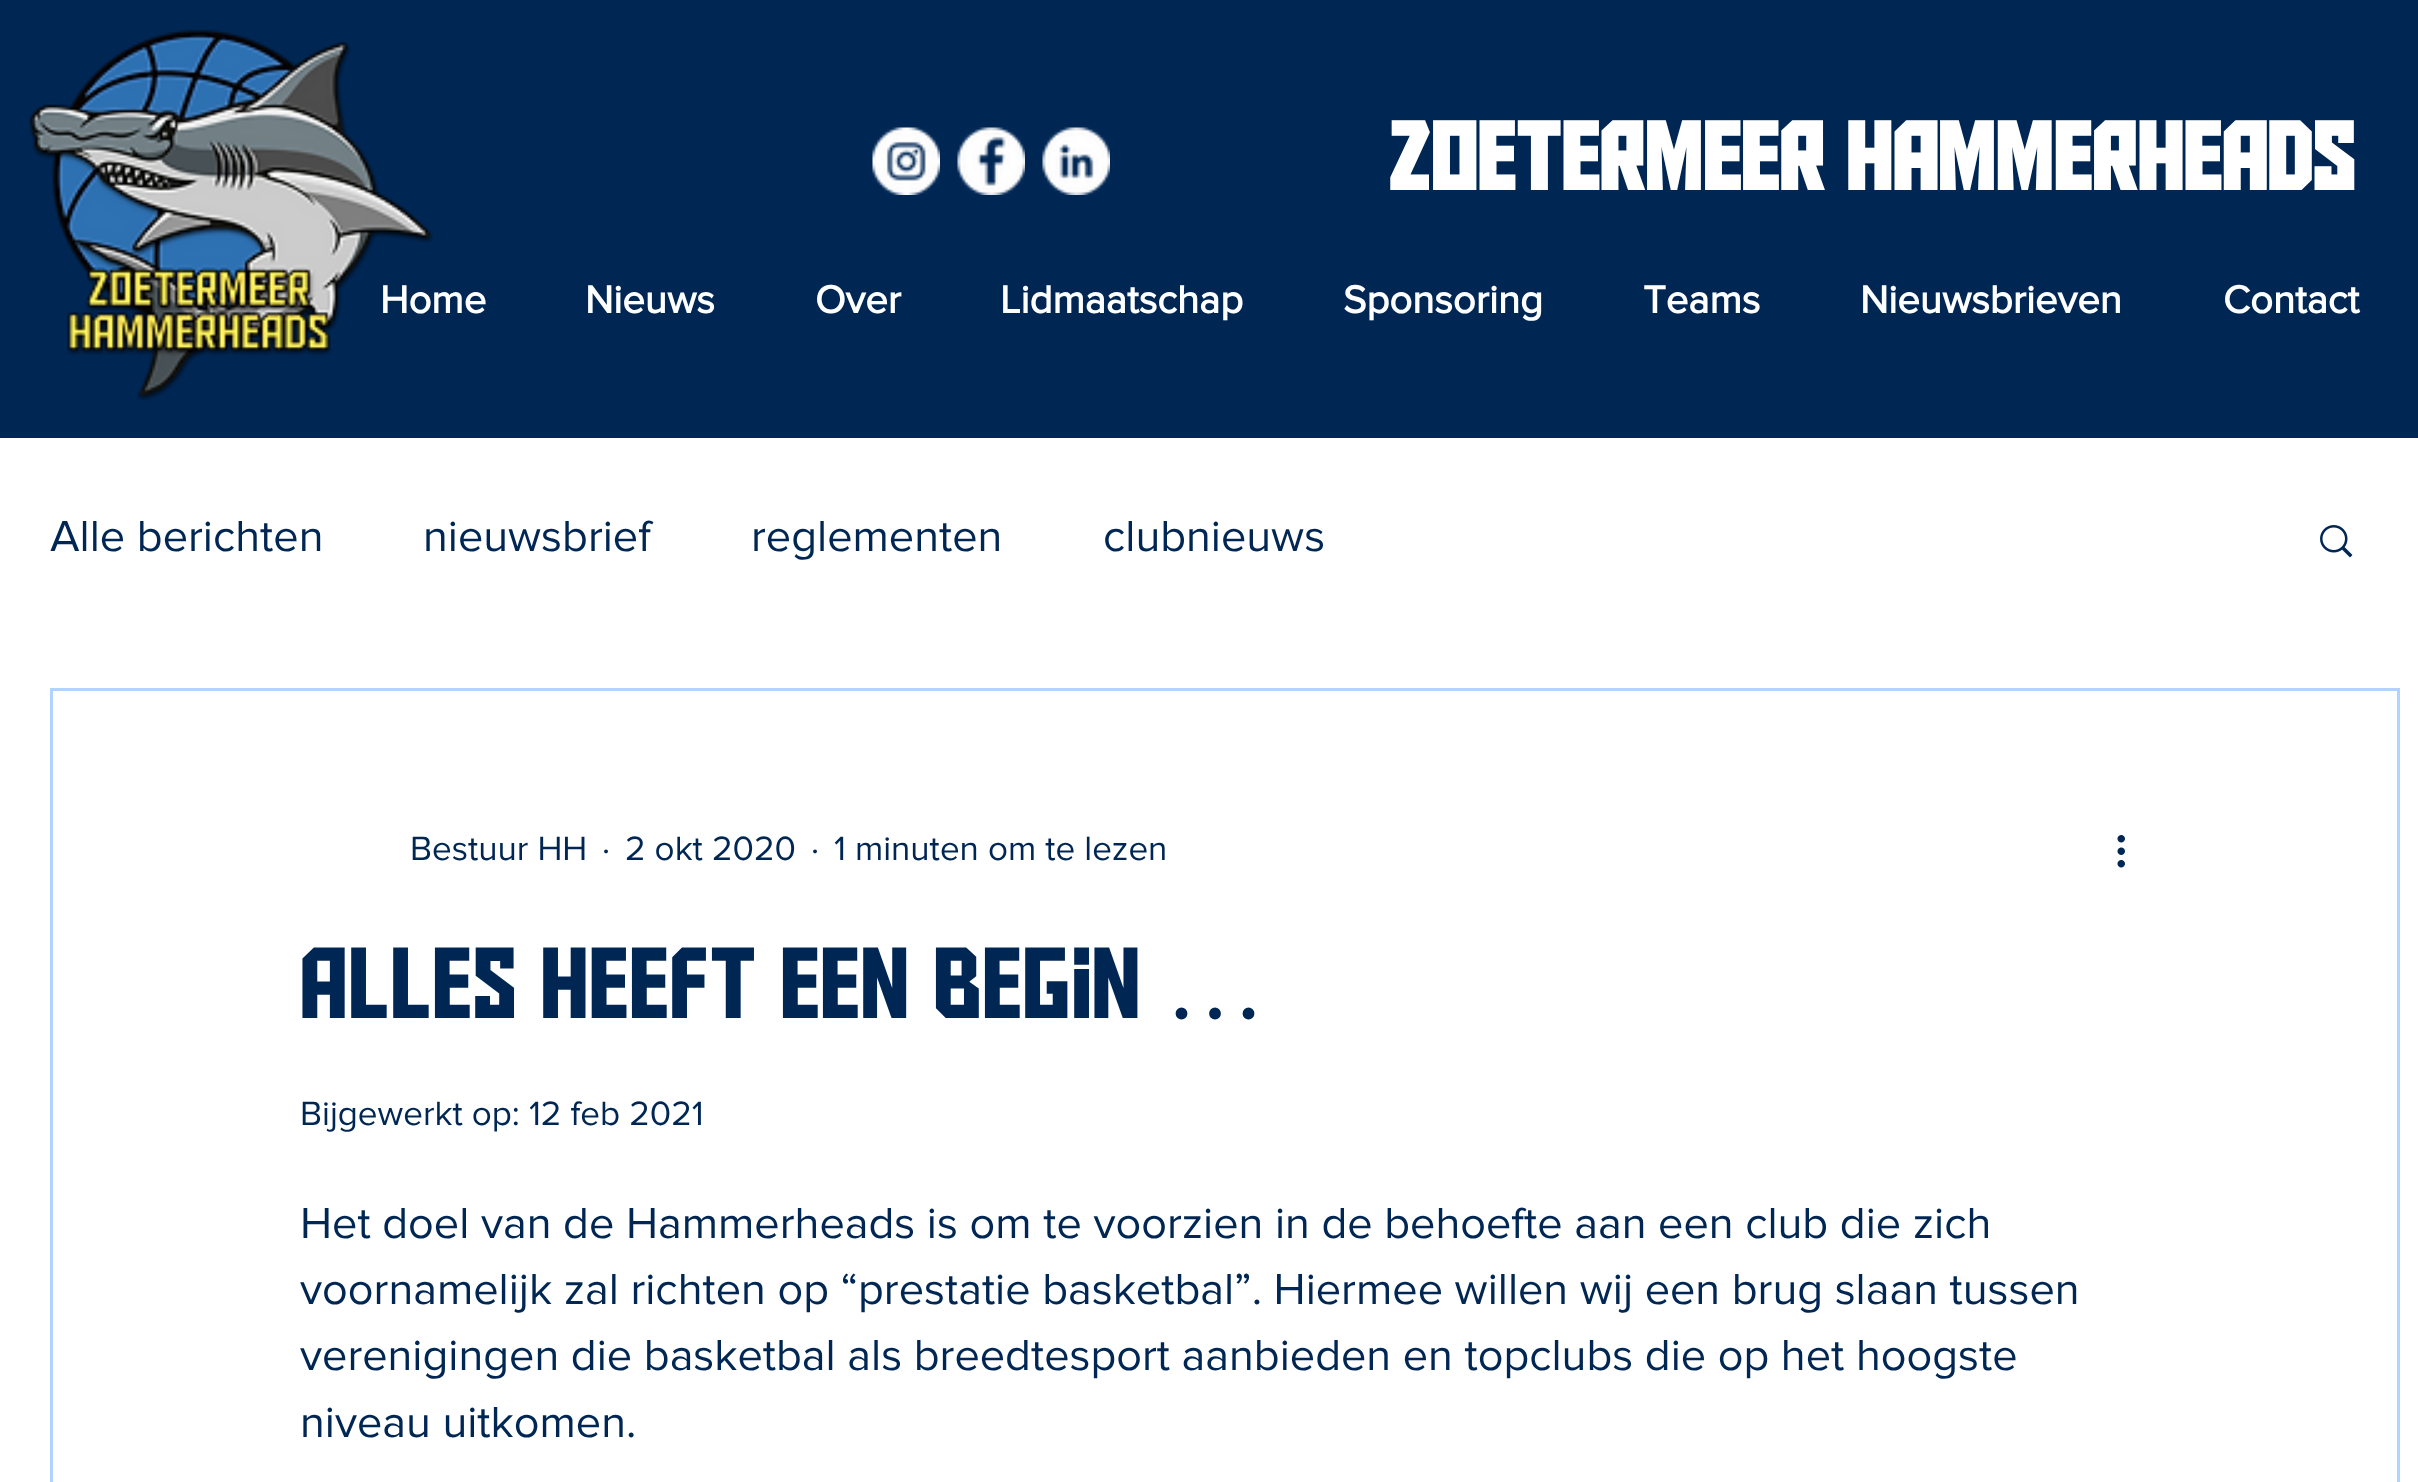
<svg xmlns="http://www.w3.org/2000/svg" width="2418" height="1482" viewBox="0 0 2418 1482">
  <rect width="100%" height="100%" fill="rgb(255,255,255)"/>
  <rect x="0" y="0" width="2418" height="438" fill="rgb(0,39,84)"/>
  <image x="29" y="29" width="405" height="372" href="pic1.png"/>
  <image x="872" y="127" width="68" height="68" href="pic2.png"/>
  <image x="957" y="127" width="68" height="68" href="pic3.png"/>
  <image x="1042" y="127" width="68" height="68" href="pic4.png"/>
  <text x="1388" y="190" font-family="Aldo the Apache" font-size="95" font-weight="bold" fill="rgb(255,255,255)">Zoetermeer Hammerheads</text>
  <g font-family="'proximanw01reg'" font-size="40" font-weight="bold" fill="rgb(255,255,255)">
    <text x="380" y="313">Home</text>
    <text x="585" y="313">Nieuws</text>
    <text x="815" y="313">Over</text>
    <text x="1000" y="313">Lidmaatschap</text>
    <text x="1343" y="313">Sponsoring</text>
    <text x="1643" y="313">Teams</text>
    <text x="1860" y="313">Nieuwsbrieven</text>
    <text x="2223" y="313">Contact</text>
  </g>
  <g font-family="'proximanw01reg'" font-size="45" fill="rgb(0,39,84)">
    <text x="50" y="551">Alle berichten</text>
    <text x="423" y="551">nieuwsbrief</text>
    <text x="751" y="551">reglementen</text>
    <text x="1103" y="551">clubnieuws</text>
  </g>
  <image x="2320" y="525" width="33" height="33" href="pic5.png"/>
  <rect x="51.5" y="689.5" width="2347" height="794" fill="none" stroke="rgb(176,212,255)" stroke-width="3"/>
  <g font-family="'proximanw01reg'" font-size="35" fill="rgb(0,39,84)">
    <text x="410" y="860">Bestuur HH</text>
    <text x="602" y="860">·</text>
    <text x="625" y="860">2 okt 2020</text>
    <text x="811" y="860">·</text>
    <text x="834" y="860">1 minuten om te lezen</text>
  </g>
  <image x="2117" y="835" width="8" height="33" href="pic6.png"/>
  <text x="300" y="1018" font-family="Aldo the Apache" font-size="100" fill="rgb(0,39,84)">Alles heeft een begin</text>
  <text x="1165" y="1018" font-family="Liberation Serif" font-size="100" fill="rgb(0,39,84)">…</text>
  <text x="300" y="1125" font-family="'proximanw01reg'" font-size="35" fill="rgb(0,39,84)">Bijgewerkt op: 12 feb 2021</text>
  <g font-family="'proximanw01reg'" font-size="45" fill="rgb(0,39,84)">
    <text>
      <tspan x="300" y="1238">Het doel van de Hammerheads is om te voorzien in de behoefte aan een club die zich</tspan>
      <tspan x="300" y="1304">voornamelijk zal richten op “prestatie basketbal”. Hiermee willen wij een brug slaan tussen</tspan>
      <tspan x="300" y="1370">verenigingen die basketbal als breedtesport aanbieden en topclubs die op het hoogste</tspan>
      <tspan x="300" y="1437">niveau uitkomen.</tspan>
    </text>
  </g>
</svg>
